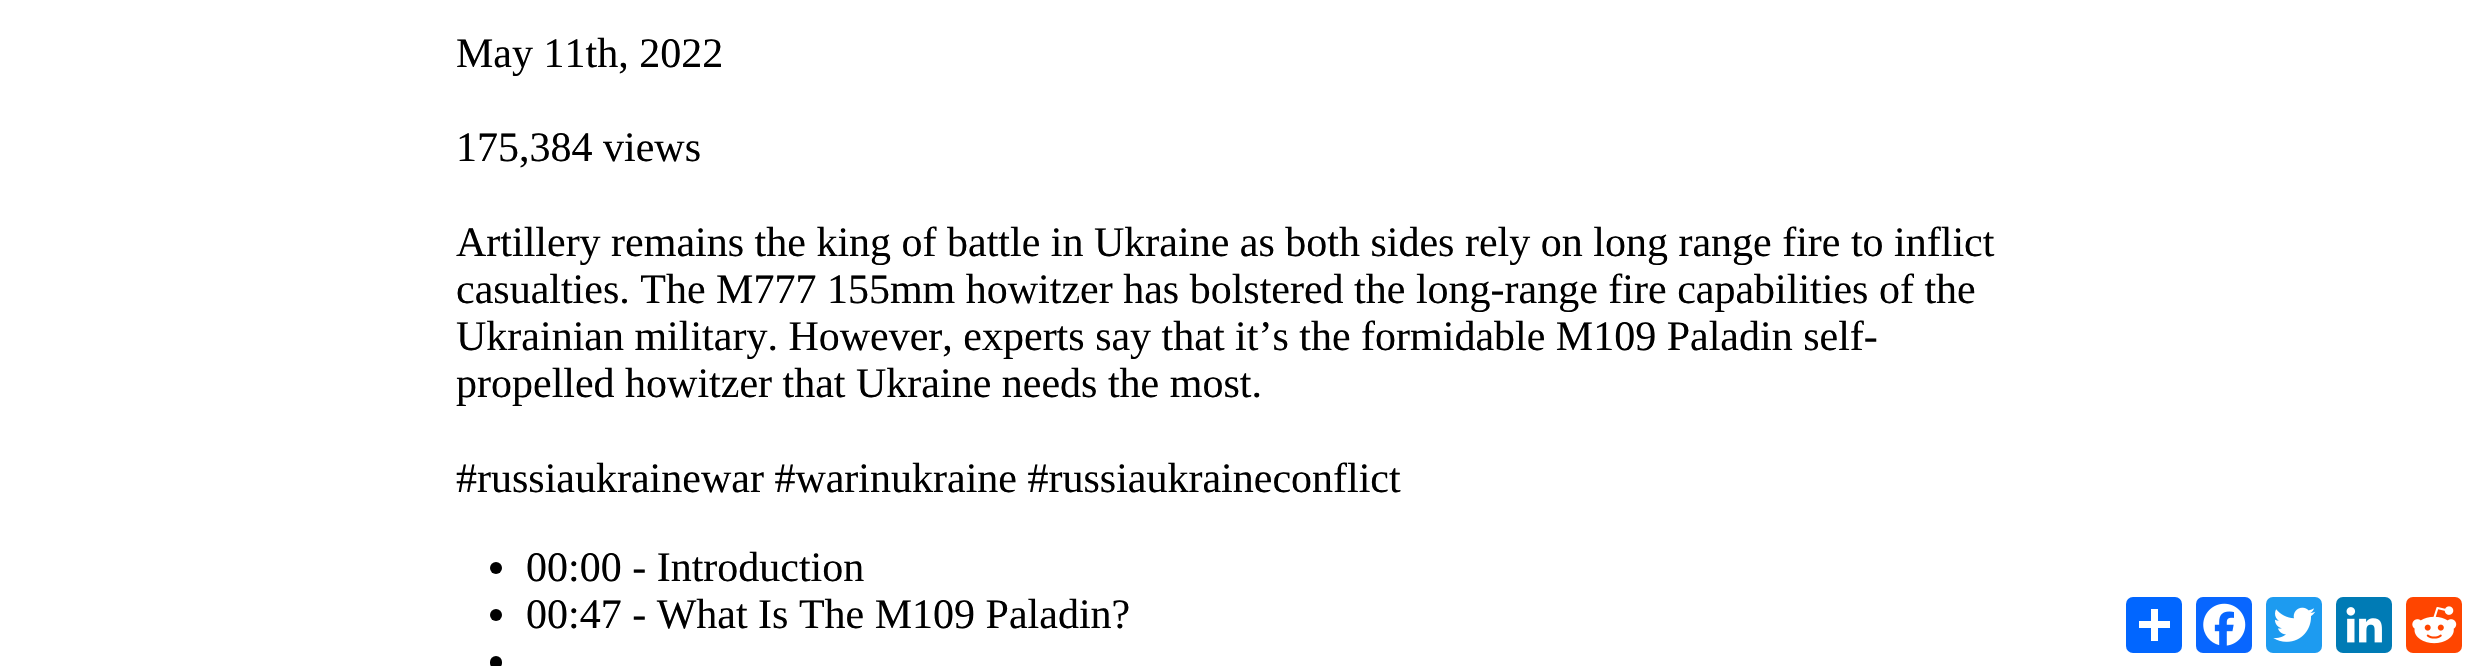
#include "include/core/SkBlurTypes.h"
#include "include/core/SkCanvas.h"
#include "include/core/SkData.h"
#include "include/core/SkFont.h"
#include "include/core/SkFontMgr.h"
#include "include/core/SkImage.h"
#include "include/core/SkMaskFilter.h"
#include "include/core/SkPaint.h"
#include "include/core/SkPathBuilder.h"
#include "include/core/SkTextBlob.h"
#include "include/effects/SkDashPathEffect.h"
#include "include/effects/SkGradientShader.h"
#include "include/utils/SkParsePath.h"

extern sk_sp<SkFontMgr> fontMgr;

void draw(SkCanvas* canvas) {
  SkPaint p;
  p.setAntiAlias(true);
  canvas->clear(SK_ColorWHITE);
  p.setColor(SK_ColorBLACK);
  canvas->drawCircle(496, 568, 6, p);
  canvas->drawCircle(496, 615, 6, p);
  canvas->drawRoundRect(SkRect::MakeLTRB(490, 656, 502, 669), 6, 6, p);
  p.setColor(SkColorSetRGB(1, 102, 255));
  canvas->drawRoundRect(SkRect::MakeLTRB(2126, 597, 2182, 653), 7, 7, p);
  p.setColor(SK_ColorWHITE);
  canvas->drawRect(SkRect::MakeLTRB(2151, 609, 2158, 641), p);
  canvas->drawRect(SkRect::MakeLTRB(2139, 621, 2170, 628), p);
  p.setColor(SkColorSetRGB(8, 102, 255));
  canvas->drawRoundRect(SkRect::MakeLTRB(2196, 597, 2252, 653), 7, 7, p);
  canvas->drawImageRect(SkImages::DeferredFromEncodedData(SkData::MakeFromFileName("images/1.png")), SkRect::MakeLTRB(2203, 603, 2246, 646), SkSamplingOptions());
  p.setColor(SkColorSetRGB(29, 155, 240));
  canvas->drawRoundRect(SkRect::MakeLTRB(2266, 597, 2322, 653), 7, 7, p);
  canvas->drawImageRect(SkImages::DeferredFromEncodedData(SkData::MakeFromFileName("images/2.png")), SkRect::MakeLTRB(2273, 607, 2316, 642), SkSamplingOptions());
  p.setColor(SkColorSetRGB(0, 123, 181));
  canvas->drawRoundRect(SkRect::MakeLTRB(2336, 597, 2392, 653), 7, 7, p);
  canvas->drawImageRect(SkImages::DeferredFromEncodedData(SkData::MakeFromFileName("images/3.png")), SkRect::MakeLTRB(2346, 607, 2382, 643), SkSamplingOptions());
  p.setColor(SkColorSetRGB(255, 69, 0));
  canvas->drawRoundRect(SkRect::MakeLTRB(2406, 597, 2462, 653), 7, 7, p);
  canvas->drawImageRect(SkImages::DeferredFromEncodedData(SkData::MakeFromFileName("images/4.png")), SkRect::MakeLTRB(2412, 606, 2457, 644), SkSamplingOptions());
  SkFont font1(fontMgr->matchFamilyStyle("Liberation Serif", SkFontStyle::Normal()), 42);
  font1.setSubpixel(true);
  p.setColor(SK_ColorBLACK);
  canvas->drawString("May 11th, 2022", 456, 67, font1, p);
  canvas->drawString("175,384 views", 456, 161, font1, p);
  canvas->drawString("Artillery remains the king of battle in Ukraine as both sides rely on long range fire to inflict", 456, 256, font1, p);
  canvas->drawString("casualties. The M777 155mm howitzer has bolstered the long-range fire capabilities of the", 456, 303, font1, p);
  canvas->drawString("Ukrainian military. However, experts say that it’s the formidable M109 Paladin self-", 456, 350, font1, p);
  canvas->drawString("propelled howitzer that Ukraine needs the most.", 456, 397, font1, p);
  canvas->drawString("#russiaukrainewar #warinukraine #russiaukraineconflict", 456, 492, font1, p);
  canvas->drawString("00:00 - Introduction", 526, 581, font1, p);
  canvas->drawString("00:47 - What Is The M109 Paladin?", 526, 628, font1, p);
}
